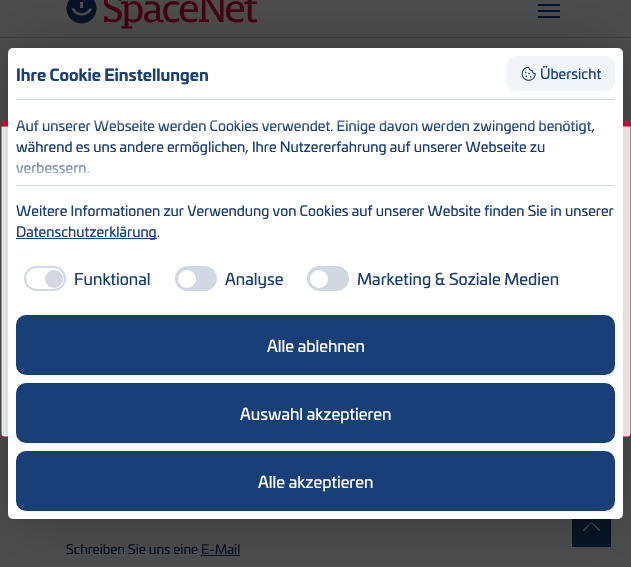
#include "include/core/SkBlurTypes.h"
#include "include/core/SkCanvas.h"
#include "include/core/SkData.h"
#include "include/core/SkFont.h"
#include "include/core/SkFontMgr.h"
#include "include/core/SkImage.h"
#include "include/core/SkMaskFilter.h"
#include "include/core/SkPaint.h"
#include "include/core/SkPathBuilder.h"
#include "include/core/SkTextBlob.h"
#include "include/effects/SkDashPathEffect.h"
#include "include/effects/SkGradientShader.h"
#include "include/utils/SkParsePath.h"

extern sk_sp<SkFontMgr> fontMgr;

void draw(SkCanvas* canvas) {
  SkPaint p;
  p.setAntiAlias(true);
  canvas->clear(SkColorSetRGB(77, 77, 77));
  canvas->drawImageRect(SkImages::DeferredFromEncodedData(SkData::MakeFromFileName("images/2.png")), SkRect::MakeLTRB(1, 120, 631, 438), SkSamplingOptions());
  p.setColor(SkColorSetRGB(65, 65, 65));
  canvas->drawRect(SkRect::MakeLTRB(0, 37, 631, 38), p);
  canvas->drawImageRect(SkImages::DeferredFromEncodedData(SkData::MakeFromFileName("images/3.png")), SkRect::MakeLTRB(66, 0, 257, 29), SkSamplingOptions());
  p.setColor(SkColorSetRGB(7, 19, 36));
  canvas->drawRect(SkRect::MakeLTRB(538, 10, 560, 12), p);
  canvas->drawRect(SkRect::MakeLTRB(538, 4, 560, 6), p);
  canvas->drawRect(SkRect::MakeLTRB(538, 16, 560, 18), p);
  canvas->drawRect(SkRect::MakeLTRB(572, 519, 611, 547), p);
  p.setColor(SkColorSetRGB(77, 77, 77));
  canvas->drawPath(SkPathBuilder().moveTo(591.5f, 522).lineTo(600, 530).lineTo(599, 531).lineTo(591, 522.5f).close().detach(), p);
  canvas->drawPath(SkPathBuilder().moveTo(591.5f, 522).lineTo(592, 522.5f).lineTo(584, 531).lineTo(583, 530).close().detach(), p);
  p.setColor(SkColorSetRGB(7, 19, 36));
  canvas->drawRect(SkRect::MakeLTRB(201, 555, 240, 556), p);
  p.setColor(SkColorSetARGB(64, 0, 0, 0));
  p.setMaskFilter(SkMaskFilter::MakeBlur(kNormal_SkBlurStyle, 32));
  canvas->drawRoundRect(SkRect::MakeLTRB(8, 48, 623, 519), 5, 5, p);
  p.setMaskFilter(nullptr);
  p.setColor(SK_ColorWHITE);
  canvas->drawRoundRect(SkRect::MakeLTRB(8, 48, 623, 519), 5, 5, p);
  p.setColor(SkColorSetRGB(241, 245, 250));
  canvas->drawRoundRect(SkRect::MakeLTRB(506, 56, 615, 91), 10, 10, p);
  canvas->drawImageRect(SkImages::DeferredFromEncodedData(SkData::MakeFromFileName("images/1.png")), SkRect::MakeLTRB(521, 66, 536, 81), SkSamplingOptions());
  p.setColor(SkColorSetRGB(209, 216, 227));
  canvas->drawRect(SkRect::MakeLTRB(16, 99, 615, 100), p);
  canvas->drawRect(SkRect::MakeLTRB(16, 185, 615, 186), p);
  p.setColor(SkColorSetRGB(24, 63, 119));
  canvas->drawRect(SkRect::MakeLTRB(16, 238, 157, 239), p);
  p.setStyle(SkPaint::kStroke_Style);
  p.setStrokeWidth(2);
  p.setColor(SkColorSetRGB(209, 216, 227));
  canvas->drawRoundRect(SkRect::MakeLTRB(25, 267, 65, 290), 11.5f, 11.5f, p);
  p.setStyle(SkPaint::kFill_Style);
  canvas->drawCircle(54, 279, 9, p);
  canvas->drawRoundRect(SkRect::MakeLTRB(176, 267, 216, 290), 11.5f, 11.5f, p);
  p.setStyle(SkPaint::kStroke_Style);
  canvas->drawRoundRect(SkRect::MakeLTRB(176, 267, 216, 290), 11.5f, 11.5f, p);
  p.setStyle(SkPaint::kFill_Style);
  p.setColor(SK_ColorWHITE);
  canvas->drawCircle(187, 279, 9, p);
  p.setColor(SkColorSetRGB(209, 216, 227));
  canvas->drawRoundRect(SkRect::MakeLTRB(308, 267, 348, 290), 11.5f, 11.5f, p);
  p.setStyle(SkPaint::kStroke_Style);
  canvas->drawRoundRect(SkRect::MakeLTRB(308, 267, 348, 290), 11.5f, 11.5f, p);
  p.setStyle(SkPaint::kFill_Style);
  p.setColor(SK_ColorWHITE);
  canvas->drawCircle(319, 279, 9, p);
  p.setColor(SkColorSetRGB(24, 63, 119));
  canvas->drawRoundRect(SkRect::MakeLTRB(17, 316, 614, 374), 9, 9, p);
  p.setStyle(SkPaint::kStroke_Style);
  canvas->drawRoundRect(SkRect::MakeLTRB(17, 316, 614, 374), 9, 9, p);
  p.setStyle(SkPaint::kFill_Style);
  canvas->drawRoundRect(SkRect::MakeLTRB(17, 384, 614, 442), 9, 9, p);
  p.setStyle(SkPaint::kStroke_Style);
  canvas->drawRoundRect(SkRect::MakeLTRB(17, 384, 614, 442), 9, 9, p);
  p.setStyle(SkPaint::kFill_Style);
  canvas->drawRoundRect(SkRect::MakeLTRB(17, 452, 614, 510), 9, 9, p);
  p.setStyle(SkPaint::kStroke_Style);
  canvas->drawRoundRect(SkRect::MakeLTRB(17, 452, 614, 510), 9, 9, p);
  SkFont font1(fontMgr->matchFamilyStyle("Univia", SkFontStyle::Bold()), 16);
  font1.setSubpixel(true);
  p.setStyle(SkPaint::kFill_Style);
  canvas->drawString("Ihre Cookie Einstellungen", 16, 81, font1, p);
  SkFont font2(fontMgr->matchFamilyStyle("Univia", SkFontStyle::Normal()), 14);
  font2.setSubpixel(true);
  canvas->drawString("Übersicht", 540, 79, font2, p);
  canvas->drawString("Auf unserer Webseite werden Cookies verwendet. Einige davon werden zwingend benötigt,", 16, 131, font2, p);
  canvas->drawString("während es uns andere ermöglichen, Ihre Nutzererfahrung auf unserer Webseite zu", 16, 152, font2, p);
  canvas->drawString("verbessern.", 16, 173, font2, p);
  {
    const SkColor colors[] = {SkColorSetARGB(0, 255, 255, 255), SK_ColorWHITE};
    const float stops[] = {0, 1};
    const SkPoint ends[] = {{316, 129}, {316, 99}};
    p.setShader(SkGradientShader::MakeLinear(ends, colors, stops, 2, SkTileMode::kClamp));
    p.setAlpha(255);
  }
  canvas->drawRect(SkRect::MakeLTRB(17, 120, 591, 128), p);
  {
    const SkColor colors[] = {SkColorSetARGB(0, 255, 255, 255), SK_ColorWHITE};
    const float stops[] = {0, 1};
    const SkPoint ends[] = {{316, 155}, {316, 185}};
    p.setShader(SkGradientShader::MakeLinear(ends, colors, stops, 2, SkTileMode::kClamp));
    p.setAlpha(255);
  }
  canvas->drawRect(SkRect::MakeLTRB(16, 162, 89, 174), p);
  p.setShader(nullptr);
  p.setColor(SkColorSetRGB(24, 63, 119));
  canvas->drawString("Weitere Informationen zur Verwendung von Cookies auf unserer Website finden Sie in unserer", 16, 216, font2, p);
  canvas->drawString("Datenschutzerklärung.", 16, 237, font2, p);
  SkFont font3(fontMgr->matchFamilyStyle("Univia", SkFontStyle::Normal()), 16);
  font3.setSubpixel(true);
  canvas->drawString("Funktional", 74, 285, font3, p);
  canvas->drawString("Analyse", 225, 285, font3, p);
  canvas->drawString("Marketing & Soziale Medien", 357, 285, font3, p);
  p.setColor(SK_ColorWHITE);
  canvas->drawString("Alle ablehnen", 267, 352, font3, p);
  canvas->drawString("Auswahl akzeptieren", 240, 420, font3, p);
  canvas->drawString("Alle akzeptieren", 258, 488, font3, p);
  SkFont font4(fontMgr->matchFamilyStyle("Univia", SkFontStyle::Normal()), 13);
  font4.setSubpixel(true);
  p.setColor(SkColorSetRGB(7, 19, 36));
  canvas->drawString("Schreiben Sie uns eine E-Mail", 66, 554, font4, p);
}
